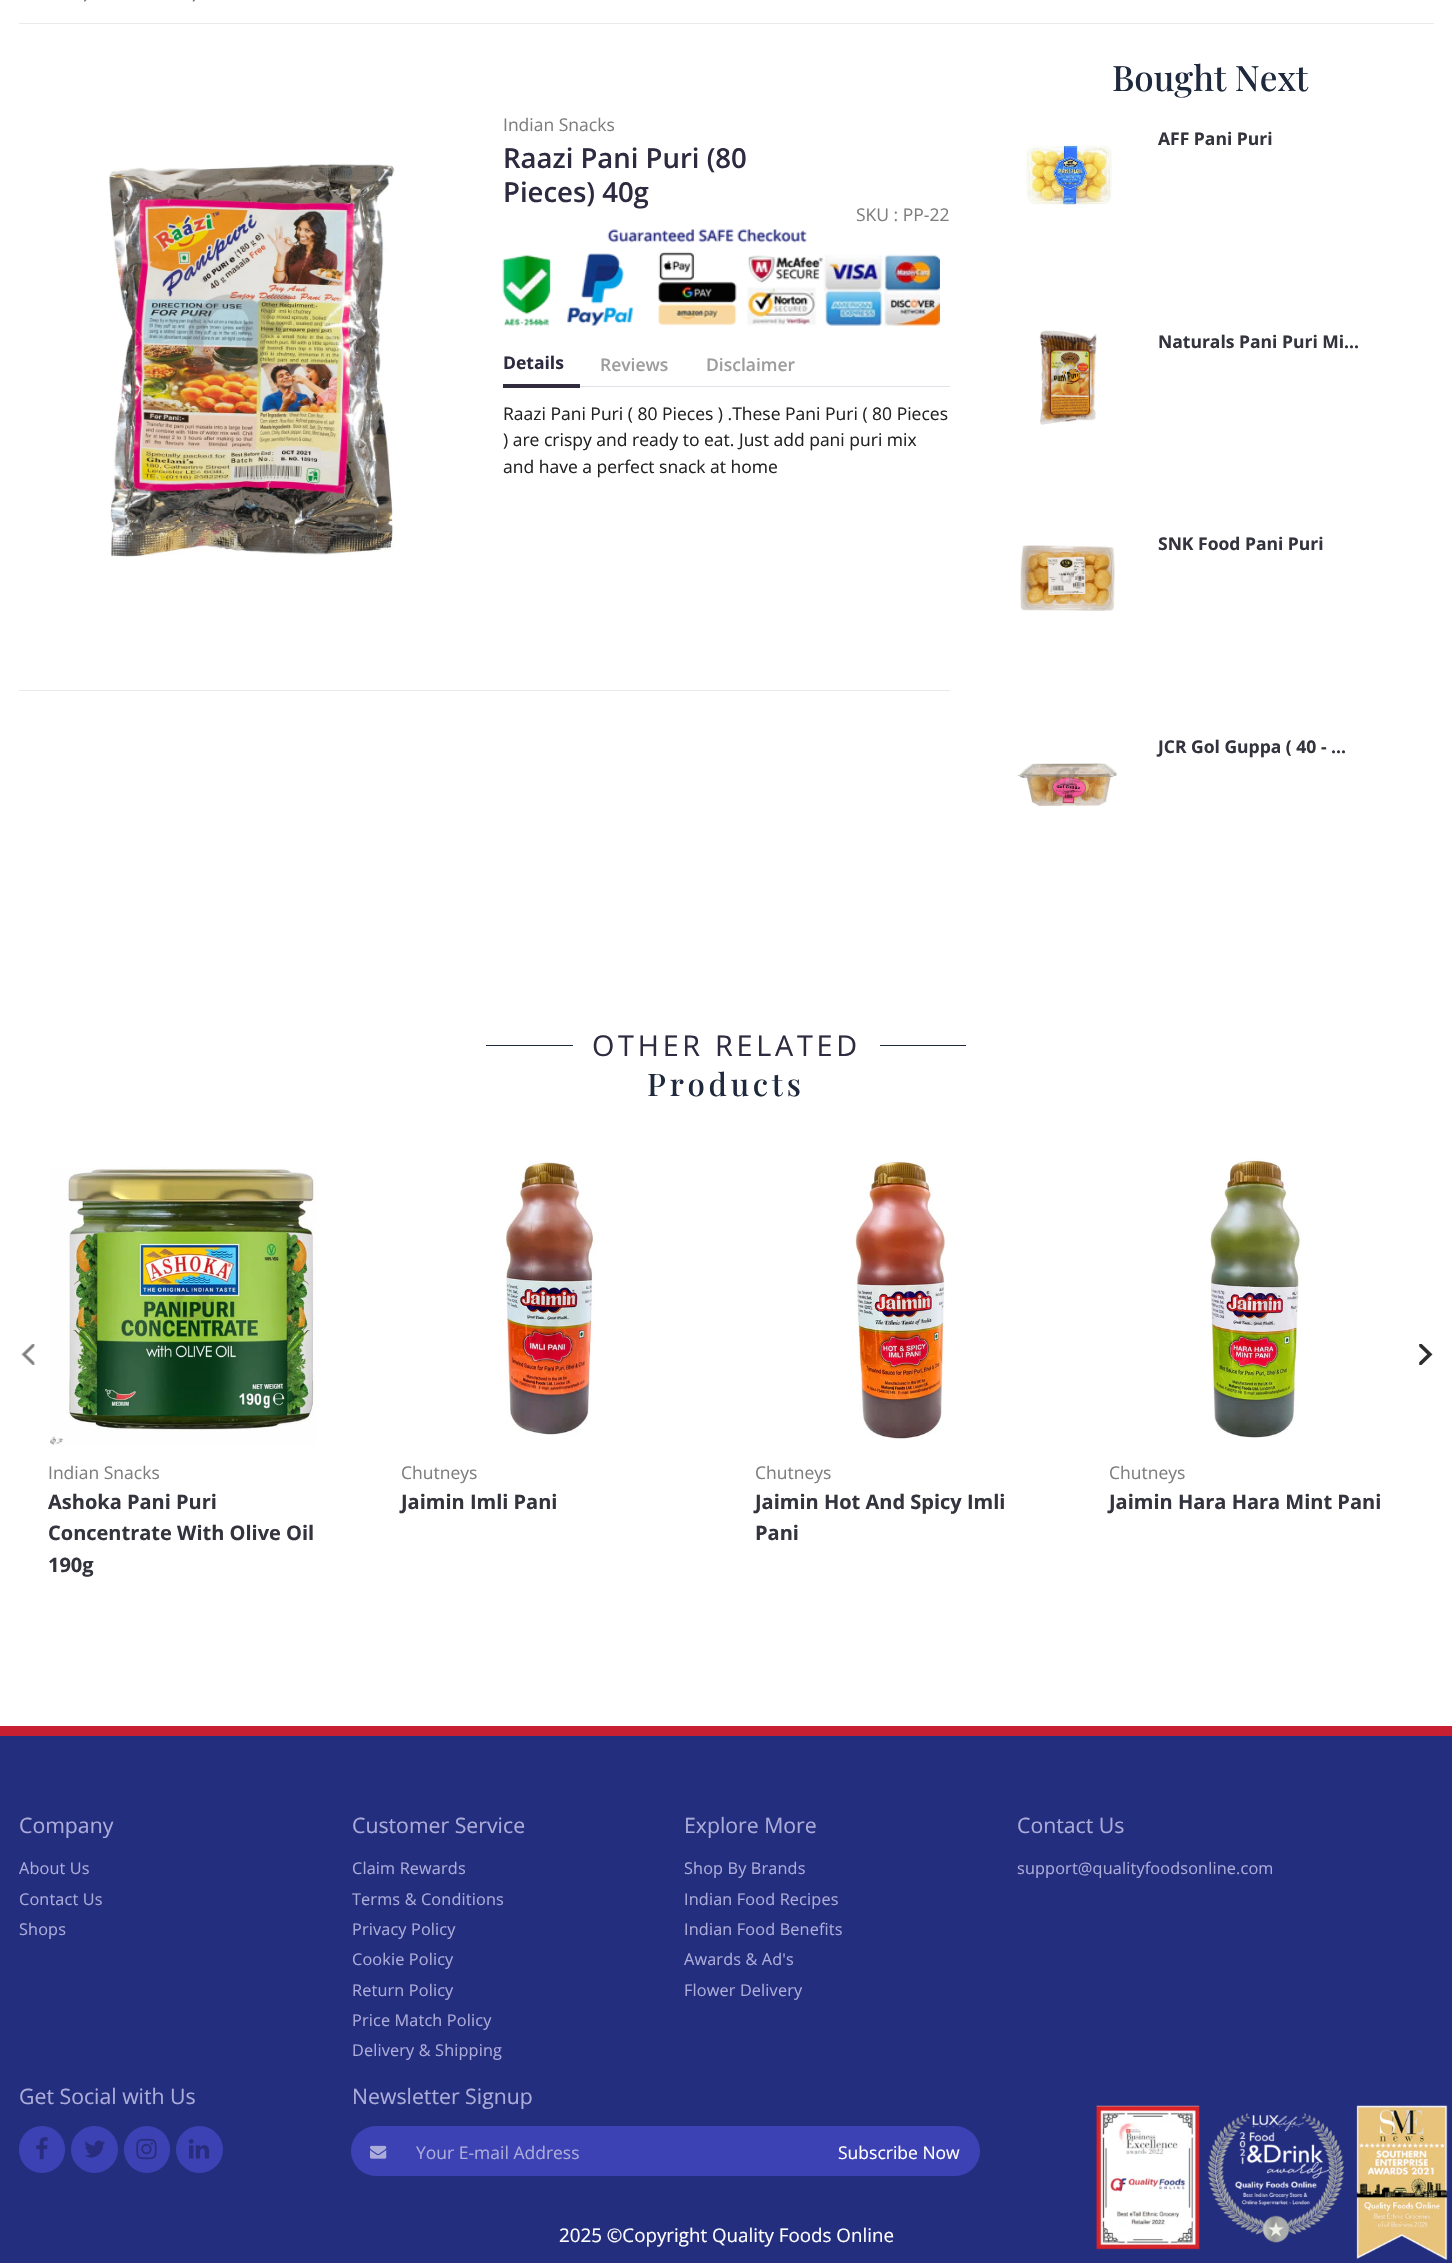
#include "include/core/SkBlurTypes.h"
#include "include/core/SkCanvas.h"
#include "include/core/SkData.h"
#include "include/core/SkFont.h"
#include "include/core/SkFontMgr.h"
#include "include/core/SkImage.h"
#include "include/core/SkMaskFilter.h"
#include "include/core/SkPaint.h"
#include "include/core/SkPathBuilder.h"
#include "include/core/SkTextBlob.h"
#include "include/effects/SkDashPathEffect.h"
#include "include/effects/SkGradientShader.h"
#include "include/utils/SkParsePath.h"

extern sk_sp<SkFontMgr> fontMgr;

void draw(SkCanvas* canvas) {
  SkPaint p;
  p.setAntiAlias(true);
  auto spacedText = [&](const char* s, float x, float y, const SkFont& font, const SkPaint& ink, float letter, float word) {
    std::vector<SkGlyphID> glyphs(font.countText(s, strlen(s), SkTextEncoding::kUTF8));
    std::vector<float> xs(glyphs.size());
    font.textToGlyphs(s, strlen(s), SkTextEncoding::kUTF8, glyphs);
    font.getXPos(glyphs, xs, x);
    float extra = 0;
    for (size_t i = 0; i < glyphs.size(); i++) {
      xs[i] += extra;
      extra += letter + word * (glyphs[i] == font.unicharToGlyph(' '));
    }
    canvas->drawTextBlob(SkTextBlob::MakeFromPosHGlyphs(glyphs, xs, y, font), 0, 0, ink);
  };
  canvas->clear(SK_ColorWHITE);
  p.setColor(SkColorSetRGB(232, 234, 235));
  canvas->drawRect(SkRect::MakeLTRB(19, 23, 1434, 24), p);
  canvas->drawImageRect(SkImages::DeferredFromEncodedData(SkData::MakeFromFileName("images/1.png")), SkRect::MakeLTRB(84, 0, 87, 2), SkSamplingOptions());
  canvas->drawImageRect(SkImages::DeferredFromEncodedData(SkData::MakeFromFileName("images/2.png")), SkRect::MakeLTRB(192, 0, 196, 2), SkSamplingOptions());
  canvas->drawRect(SkRect::MakeLTRB(19, 690, 950, 691), p);
  canvas->drawImageRect(SkImages::DeferredFromEncodedData(SkData::MakeFromFileName("images/3.png")), SkRect::MakeLTRB(109, 163, 395, 557), SkSamplingOptions());
  canvas->drawImageRect(SkImages::DeferredFromEncodedData(SkData::MakeFromFileName("images/4.png")), SkRect::MakeLTRB(502, 229, 940, 326), SkSamplingOptions());
  p.setColor(SkColorSetRGB(222, 226, 230));
  canvas->drawRect(SkRect::MakeLTRB(580, 386, 950, 387), p);
  p.setColor(SkColorSetRGB(48, 44, 61));
  canvas->drawRect(SkRect::MakeLTRB(503, 384, 580, 388), p);
  canvas->drawImageRect(SkImages::DeferredFromEncodedData(SkData::MakeFromFileName("images/5.png")), SkRect::MakeLTRB(1026, 145, 1112, 205), SkSamplingOptions());
  canvas->drawImageRect(SkImages::DeferredFromEncodedData(SkData::MakeFromFileName("images/6.png")), SkRect::MakeLTRB(1039, 330, 1097, 425), SkSamplingOptions());
  canvas->drawImageRect(SkImages::DeferredFromEncodedData(SkData::MakeFromFileName("images/7.png")), SkRect::MakeLTRB(1020, 545, 1115, 611), SkSamplingOptions());
  canvas->drawImageRect(SkImages::DeferredFromEncodedData(SkData::MakeFromFileName("images/8.png")), SkRect::MakeLTRB(1017, 763, 1118, 807), SkSamplingOptions());
  p.setColor(SkColorSetRGB(31, 42, 60));
  canvas->drawRect(SkRect::MakeLTRB(486, 1045, 573, 1046), p);
  canvas->drawRect(SkRect::MakeLTRB(880, 1045, 966, 1046), p);
  canvas->drawImageRect(SkImages::DeferredFromEncodedData(SkData::MakeFromFileName("images/9.png")), SkRect::MakeLTRB(21, 1344, 35, 1365), SkSamplingOptions());
  canvas->drawImageRect(SkImages::DeferredFromEncodedData(SkData::MakeFromFileName("images/10.png")), SkRect::MakeLTRB(1419, 1344, 1433, 1365), SkSamplingOptions());
  canvas->drawImageRect(SkImages::DeferredFromEncodedData(SkData::MakeFromFileName("images/11.png")), SkRect::MakeLTRB(50, 1167, 316, 1446), SkSamplingOptions());
  canvas->drawImageRect(SkImages::DeferredFromEncodedData(SkData::MakeFromFileName("images/12.png")), SkRect::MakeLTRB(506, 1161, 596, 1435), SkSamplingOptions());
  canvas->drawImageRect(SkImages::DeferredFromEncodedData(SkData::MakeFromFileName("images/13.png")), SkRect::MakeLTRB(855, 1161, 945, 1440), SkSamplingOptions());
  canvas->drawImageRect(SkImages::DeferredFromEncodedData(SkData::MakeFromFileName("images/14.png")), SkRect::MakeLTRB(1209, 1159, 1304, 1438), SkSamplingOptions());
  p.setColor(SkColorSetRGB(36, 46, 127));
  canvas->drawRect(SkRect::MakeLTRB(0, 1736, 1452, 2263), p);
  canvas->drawImageRect(SkImages::DeferredFromEncodedData(SkData::MakeFromFileName("images/15.png")), SkRect::MakeLTRB(1096, 2105, 1448, 2260), SkSamplingOptions());
  p.setColor(SkColorSetRGB(200, 31, 51));
  canvas->drawRect(SkRect::MakeLTRB(0, 1726, 1452, 1736), p);
  p.setColor(SkColorSetRGB(60, 66, 179));
  canvas->drawRoundRect(SkRect::MakeLTRB(19, 2126, 65, 2173), 23, 23, p);
  canvas->drawImageRect(SkImages::DeferredFromEncodedData(SkData::MakeFromFileName("images/16.png")), SkRect::MakeLTRB(36, 2137, 48, 2160), SkSamplingOptions());
  canvas->drawCircle(94.5f, 2149.5f, 23.5f, p);
  canvas->drawImageRect(SkImages::DeferredFromEncodedData(SkData::MakeFromFileName("images/17.png")), SkRect::MakeLTRB(84, 2140, 105, 2158), SkSamplingOptions());
  canvas->drawRoundRect(SkRect::MakeLTRB(124, 2126, 170, 2173), 23, 23, p);
  canvas->drawImageRect(SkImages::DeferredFromEncodedData(SkData::MakeFromFileName("images/18.png")), SkRect::MakeLTRB(136, 2138, 157, 2160), SkSamplingOptions());
  canvas->drawCircle(199.5f, 2149.5f, 23.5f, p);
  canvas->drawImageRect(SkImages::DeferredFromEncodedData(SkData::MakeFromFileName("images/19.png")), SkRect::MakeLTRB(188, 2139, 210, 2159), SkSamplingOptions());
  canvas->drawRoundRect(SkRect::MakeLTRB(351, 2126, 980, 2176), 25, 25, p);
  canvas->drawImageRect(SkImages::DeferredFromEncodedData(SkData::MakeFromFileName("images/20.png")), SkRect::MakeLTRB(370, 2145, 387, 2159), SkSamplingOptions());
  SkFont font1(fontMgr->matchFamilyStyle("Open Sans", SkFontStyle::Normal()), 17.5f);
  font1.setSubpixel(true);
  p.setColor(SkColorSetRGB(126, 126, 126));
  canvas->drawString("Indian Snacks", 503, 131, font1, p);
  SkFont font2(fontMgr->matchFamilyStyle("Open Sans", SkFontStyle(600, SkFontStyle::kNormal_Width, SkFontStyle::kUpright_Slant)), 27.5f);
  font2.setSubpixel(true);
  p.setColor(SkColorSetRGB(46, 43, 64));
  canvas->drawString("Raazi Pani Puri (80", 503, 168, font2, p);
  canvas->drawString("Pieces) 40g", 503, 202, font2, p);
  p.setColor(SkColorSetRGB(126, 126, 126));
  canvas->drawString("SKU : PP-22", 856, 221, font1, p);
  SkFont font3(fontMgr->matchFamilyStyle("Open Sans", SkFontStyle::Bold()), 17.5f);
  font3.setSubpixel(true);
  p.setColor(SkColorSetRGB(46, 43, 64));
  canvas->drawString("Details", 503, 369, font3, p);
  SkFont font4(fontMgr->matchFamilyStyle("Open Sans", SkFontStyle(600, SkFontStyle::kNormal_Width, SkFontStyle::kUpright_Slant)), 17.5f);
  font4.setSubpixel(true);
  p.setColor(SkColorSetRGB(158, 156, 156));
  canvas->drawString("Reviews", 600, 371, font4, p);
  canvas->drawString("Disclaimer", 706, 371, font4, p);
  p.setColor(SkColorSetRGB(35, 35, 35));
  canvas->drawString("Raazi Pani Puri ( 80 Pieces ) .These Pani Puri ( 80 Pieces", 503, 420, font1, p);
  canvas->drawString(") are crispy and ready to eat. Just add pani puri mix", 503, 446, font1, p);
  canvas->drawString("and have a perfect snack at home", 503, 473, font1, p);
  SkFont font5(fontMgr->matchFamilyStyle("Playfair Display", SkFontStyle(500, SkFontStyle::kNormal_Width, SkFontStyle::kUpright_Slant)), 35);
  font5.setSubpixel(true);
  p.setColor(SkColorSetRGB(30, 41, 61));
  canvas->drawString("Bought Next", 1112, 91, font5, p);
  p.setColor(SkColorSetRGB(52, 52, 62));
  canvas->drawString("AFF Pani Puri", 1158, 145, font3, p);
  canvas->drawString("Naturals Pani Puri Mi...", 1158, 348, font3, p);
  canvas->drawString("SNK Food Pani Puri", 1158, 550, font3, p);
  canvas->drawString("JCR Gol Guppa ( 40 - ...", 1158, 753, font3, p);
  SkFont font6(fontMgr->matchFamilyStyle("Open Sans", SkFontStyle::Normal()), 28.75f);
  font6.setSubpixel(true);
  p.setColor(SkColorSetRGB(46, 43, 64));
  spacedText("OTHER RELATED", 592, 1056, font6, p, 3.75f, 0);
  SkFont font7(fontMgr->matchFamilyStyle("Playfair Display", SkFontStyle(500, SkFontStyle::kNormal_Width, SkFontStyle::kUpright_Slant)), 31.25f);
  font7.setSubpixel(true);
  p.setColor(SkColorSetRGB(30, 41, 61));
  spacedText("Products", 647, 1096, font7, p, 3.75f, 0);
  p.setColor(SkColorSetRGB(126, 126, 126));
  canvas->drawString("Indian Snacks", 48, 1479, font1, p);
  SkFont font8(fontMgr->matchFamilyStyle("Open Sans", SkFontStyle::Bold()), 20);
  font8.setSubpixel(true);
  p.setColor(SkColorSetRGB(52, 52, 62));
  canvas->drawString("Ashoka Pani Puri", 48, 1509, font8, p);
  canvas->drawString("Concentrate With Olive Oil", 48, 1540, font8, p);
  canvas->drawString("190g", 48, 1572, font8, p);
  p.setColor(SkColorSetRGB(126, 126, 126));
  canvas->drawString("Chutneys", 401, 1479, font1, p);
  p.setColor(SkColorSetRGB(52, 52, 62));
  canvas->drawString("Jaimin Imli Pani", 401, 1509, font8, p);
  p.setColor(SkColorSetRGB(126, 126, 126));
  canvas->drawString("Chutneys", 755, 1479, font1, p);
  p.setColor(SkColorSetRGB(52, 52, 62));
  canvas->drawString("Jaimin Hot And Spicy Imli", 755, 1509, font8, p);
  canvas->drawString("Pani", 755, 1540, font8, p);
  p.setColor(SkColorSetRGB(126, 126, 126));
  canvas->drawString("Chutneys", 1109, 1479, font1, p);
  p.setColor(SkColorSetRGB(52, 52, 62));
  canvas->drawString("Jaimin Hara Hara Mint Pani", 1109, 1509, font8, p);
  SkFont font9(fontMgr->matchFamilyStyle("Open Sans", SkFontStyle::Normal()), 21.25f);
  font9.setSubpixel(true);
  p.setColor(SkColorSetRGB(172, 172, 218));
  canvas->drawString("Company", 19, 1833, font9, p);
  SkFont font10(fontMgr->matchFamilyStyle("Open Sans", SkFontStyle::Normal()), 16.25f);
  font10.setSubpixel(true);
  spacedText("About Us", 19, 1874, font10, p, 0.15f, 0);
  spacedText("Contact Us", 19, 1905, font10, p, 0.15f, 0);
  spacedText("Shops", 19, 1935, font10, p, 0.15f, 0);
  canvas->drawString("Customer Service", 352, 1833, font9, p);
  spacedText("Claim Rewards", 352, 1874, font10, p, 0.15f, 0);
  spacedText("Terms & Conditions", 352, 1905, font10, p, 0.15f, 0);
  spacedText("Privacy Policy", 352, 1935, font10, p, 0.15f, 0);
  spacedText("Cookie Policy", 352, 1965, font10, p, 0.15f, 0);
  spacedText("Return Policy", 352, 1996, font10, p, 0.15f, 0);
  spacedText("Price Match Policy", 352, 2026, font10, p, 0.15f, 0);
  spacedText("Delivery & Shipping", 352, 2056, font10, p, 0.15f, 0);
  canvas->drawString("Explore More", 684, 1833, font9, p);
  spacedText("Shop By Brands", 684, 1874, font10, p, 0.15f, 0);
  spacedText("Indian Food Recipes", 684, 1905, font10, p, 0.15f, 0);
  spacedText("Indian Food Benefits", 684, 1935, font10, p, 0.15f, 0);
  spacedText("Awards & Ad's", 684, 1965, font10, p, 0.15f, 0);
  spacedText("Flower Delivery", 684, 1996, font10, p, 0.15f, 0);
  canvas->drawString("Contact Us", 1017, 1833, font9, p);
  spacedText("support@qualityfoodsonline.com", 1017, 1874, font10, p, 0.15f, 0);
  canvas->drawString("Get Social with Us", 19, 2104, font9, p);
  canvas->drawString("Newsletter Signup", 352, 2104, font9, p);
  canvas->drawString("Your E-mail Address", 416, 2159, font1, p);
  p.setColor(SK_ColorWHITE);
  canvas->drawString("Subscribe Now", 838, 2159, font1, p);
  SkFont font11(fontMgr->matchFamilyStyle("Open Sans", SkFontStyle::Normal()), 18.75f);
  font11.setSubpixel(true);
  canvas->drawString("2025 ©Copyright Quality Foods Online", 559, 2242, font11, p);
}
